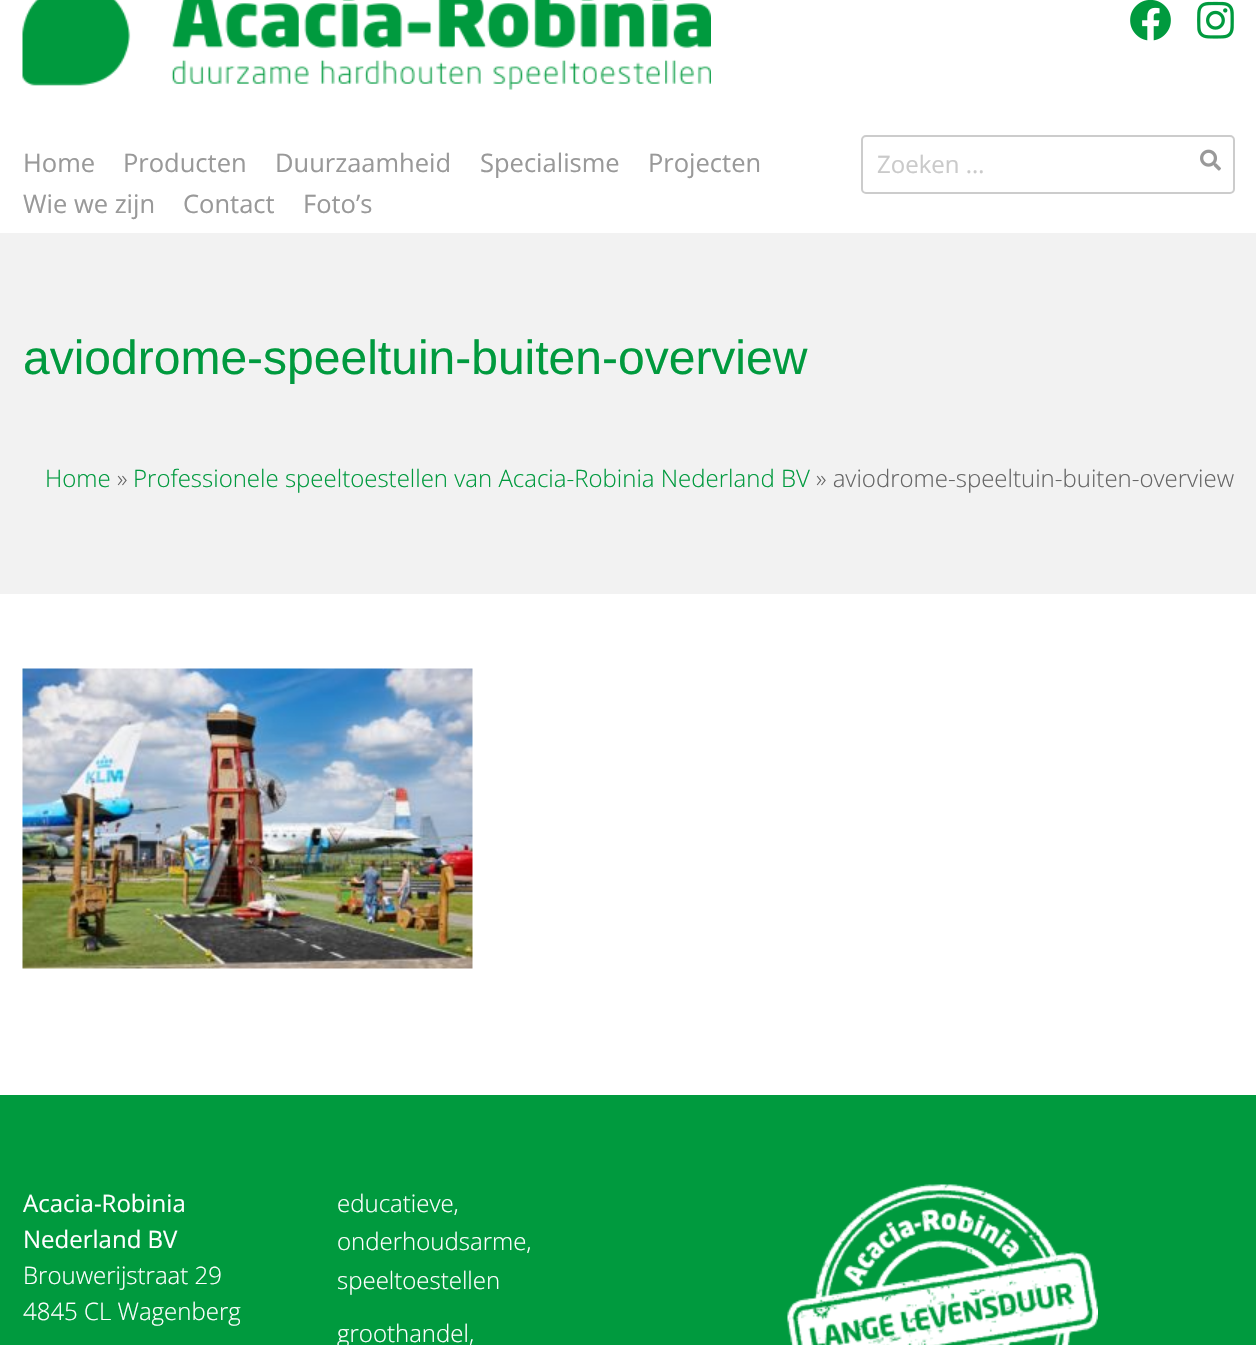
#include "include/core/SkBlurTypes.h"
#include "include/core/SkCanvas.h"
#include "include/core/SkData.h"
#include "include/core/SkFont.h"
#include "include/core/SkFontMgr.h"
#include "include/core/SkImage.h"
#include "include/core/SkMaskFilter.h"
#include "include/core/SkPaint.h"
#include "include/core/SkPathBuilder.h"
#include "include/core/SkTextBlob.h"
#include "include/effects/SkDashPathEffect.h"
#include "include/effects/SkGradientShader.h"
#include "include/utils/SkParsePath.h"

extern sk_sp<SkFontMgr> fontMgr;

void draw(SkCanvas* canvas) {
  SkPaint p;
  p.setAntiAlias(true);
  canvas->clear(SK_ColorWHITE);
  canvas->drawImageRect(SkImages::DeferredFromEncodedData(SkData::MakeFromFileName("images/1.png")), SkRect::MakeLTRB(22, 0, 711, 90), SkSamplingOptions());
  canvas->drawImageRect(SkImages::DeferredFromEncodedData(SkData::MakeFromFileName("images/2.png")), SkRect::MakeLTRB(1130, 0, 1171, 41), SkSamplingOptions());
  canvas->drawImageRect(SkImages::DeferredFromEncodedData(SkData::MakeFromFileName("images/3.png")), SkRect::MakeLTRB(1197, 1, 1234, 39), SkSamplingOptions());
  p.setStyle(SkPaint::kStroke_Style);
  p.setStrokeWidth(2);
  p.setColor(SkColorSetRGB(204, 204, 204));
  canvas->drawRoundRect(SkRect::MakeLTRB(862, 136, 1234, 193), 4, 4, p);
  canvas->drawImageRect(SkImages::DeferredFromEncodedData(SkData::MakeFromFileName("images/4.png")), SkRect::MakeLTRB(1200, 149, 1221, 171), SkSamplingOptions());
  p.setStyle(SkPaint::kFill_Style);
  p.setColor(SkColorSetRGB(242, 242, 242));
  canvas->drawRect(SkRect::MakeLTRB(0, 233, 1256, 594), p);
  canvas->drawImageRect(SkImages::DeferredFromEncodedData(SkData::MakeFromFileName("images/5.png")), SkRect::MakeLTRB(22, 668, 473, 969), SkSamplingOptions());
  p.setColor(SkColorSetRGB(0, 154, 62));
  canvas->drawRect(SkRect::MakeLTRB(0, 1095, 1256, 1345), p);
  canvas->drawImageRect(SkImages::DeferredFromEncodedData(SkData::MakeFromFileName("images/6.png")), SkRect::MakeLTRB(787, 1184, 1098, 1345), SkSamplingOptions());
  SkFont font1(fontMgr->matchFamilyStyle("Open Sans", SkFontStyle::Normal()), 25.5f);
  font1.setSubpixel(true);
  p.setColor(SkColorSetRGB(153, 153, 153));
  canvas->drawString("Home", 23, 172, font1, p);
  canvas->drawString("Producten", 123, 172, font1, p);
  canvas->drawString("Duurzaamheid", 275, 172, font1, p);
  canvas->drawString("Specialisme", 480, 172, font1, p);
  canvas->drawString("Projecten", 648, 172, font1, p);
  canvas->drawString("Wie we zijn", 23, 213, font1, p);
  canvas->drawString("Contact", 183, 213, font1, p);
  canvas->drawString("Foto’s", 303, 213, font1, p);
  SkFont font2(fontMgr->matchFamilyStyle("Open Sans", SkFontStyle::Normal()), 24);
  font2.setSubpixel(true);
  p.setColor(SkColorSetRGB(202, 202, 202));
  canvas->drawString("Zoeken …", 877, 173, font2, p);
  SkFont font3(fontMgr->matchFamilyStyle("Liberation Sans", SkFontStyle::Normal()), 48);
  font3.setSubpixel(true);
  p.setColor(SkColorSetRGB(0, 154, 62));
  canvas->drawString("aviodrome-speeltuin-buiten-overview", 23, 374, font3, p);
  SkFont font4(fontMgr->matchFamilyStyle("Open Sans", SkFontStyle(300, SkFontStyle::kNormal_Width, SkFontStyle::kUpright_Slant)), 24);
  font4.setSubpixel(true);
  canvas->drawString("Home", 45, 487, font4, p);
  p.setColor(SkColorSetRGB(102, 102, 102));
  canvas->drawString("»", 117, 487, font4, p);
  p.setColor(SkColorSetRGB(0, 154, 62));
  canvas->drawString("Professionele speeltoestellen van Acacia-Robinia Nederland BV", 133, 487, font4, p);
  p.setColor(SkColorSetRGB(102, 102, 102));
  canvas->drawString("» aviodrome-speeltuin-buiten-overview", 816, 487, font4, p);
  p.setColor(SK_ColorWHITE);
  canvas->drawString("Acacia-Robinia", 23, 1212, font2, p);
  canvas->drawString("Nederland BV", 23, 1248, font2, p);
  canvas->drawString("Brouwerijstraat 29", 23, 1284, font4, p);
  canvas->drawString("4845 CL Wagenberg", 23, 1320, font4, p);
  canvas->drawString("educatieve,", 337, 1212, font4, p);
  canvas->drawString("onderhoudsarme,", 337, 1250, font4, p);
  canvas->drawString("speeltoestellen", 337, 1289, font4, p);
  canvas->drawString("groothandel,", 337, 1342, font4, p);
}
